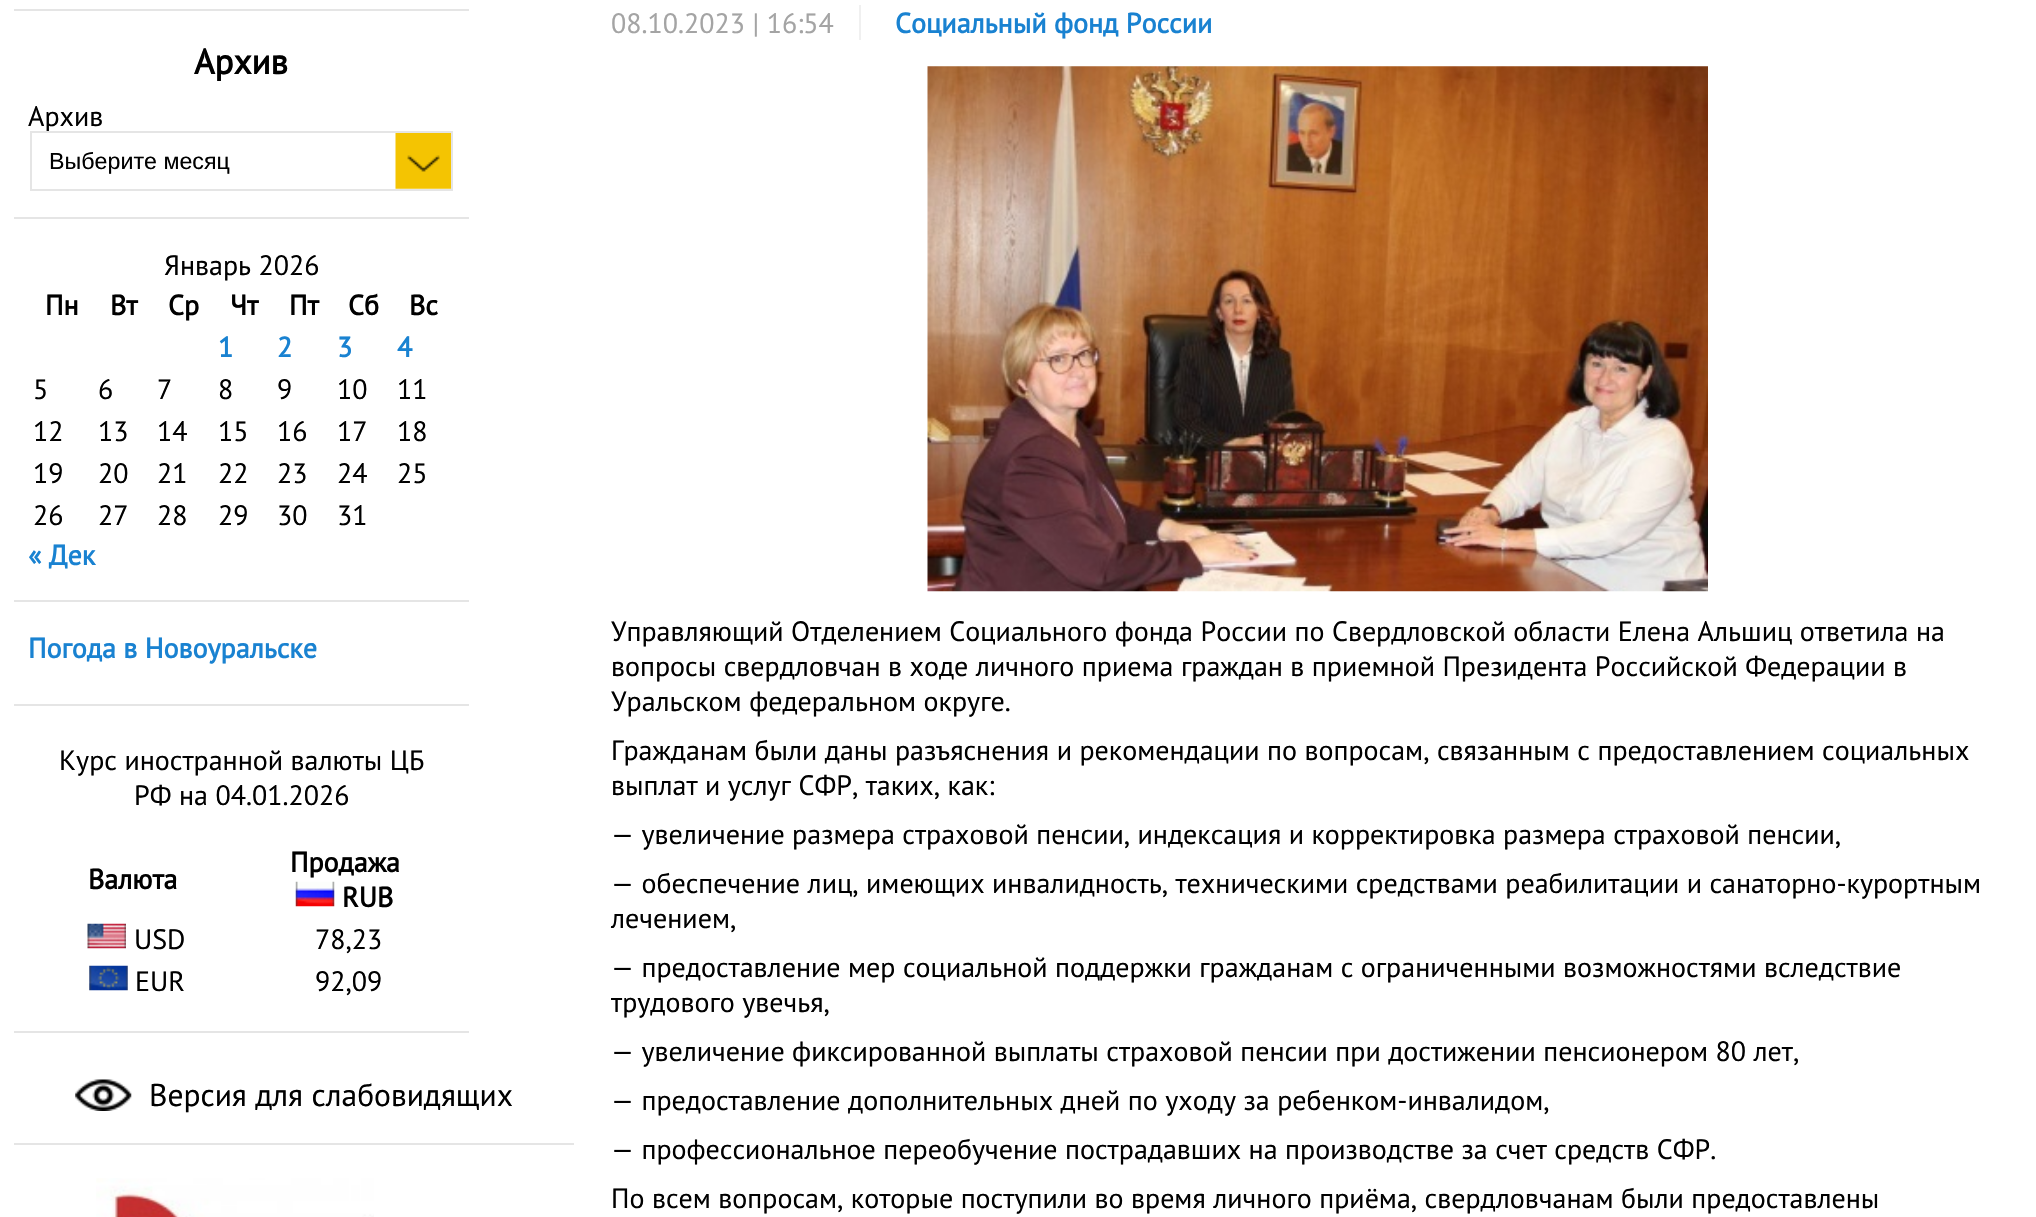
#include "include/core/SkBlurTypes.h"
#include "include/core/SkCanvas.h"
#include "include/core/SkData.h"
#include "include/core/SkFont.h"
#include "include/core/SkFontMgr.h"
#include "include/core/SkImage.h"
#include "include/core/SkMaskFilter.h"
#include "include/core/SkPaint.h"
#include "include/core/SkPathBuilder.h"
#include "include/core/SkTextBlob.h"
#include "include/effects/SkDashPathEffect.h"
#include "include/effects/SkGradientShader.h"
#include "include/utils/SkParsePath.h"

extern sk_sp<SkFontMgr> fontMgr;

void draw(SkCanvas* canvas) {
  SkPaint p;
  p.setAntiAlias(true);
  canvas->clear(SK_ColorWHITE);
  p.setColor(SkColorSetRGB(229, 229, 229));
  canvas->drawRect(SkRect::MakeLTRB(14, 9, 469, 11), p);
  canvas->drawRect(SkRect::MakeLTRB(14, 217, 469, 219), p);
  canvas->drawImageRect(SkImages::DeferredFromEncodedData(SkData::MakeFromFileName("images/1.png")), SkRect::MakeLTRB(395, 133, 451, 189), SkSamplingOptions());
  canvas->drawRect(SkRect::MakeLTRB(14, 600, 469, 602), p);
  canvas->drawRect(SkRect::MakeLTRB(14, 704, 469, 706), p);
  canvas->drawRect(SkRect::MakeLTRB(14, 1031, 469, 1033), p);
  canvas->drawImageRect(SkImages::DeferredFromEncodedData(SkData::MakeFromFileName("images/2.png")), SkRect::MakeLTRB(295, 881, 335, 907), SkSamplingOptions());
  canvas->drawImageRect(SkImages::DeferredFromEncodedData(SkData::MakeFromFileName("images/3.png")), SkRect::MakeLTRB(87, 923, 126, 949), SkSamplingOptions());
  canvas->drawImageRect(SkImages::DeferredFromEncodedData(SkData::MakeFromFileName("images/4.png")), SkRect::MakeLTRB(89, 965, 128, 991), SkSamplingOptions());
  p.setColor(SkColorSetRGB(240, 240, 240));
  canvas->drawRect(SkRect::MakeLTRB(859, 5, 861, 40), p);
  canvas->drawImageRect(SkImages::DeferredFromEncodedData(SkData::MakeFromFileName("images/5.png")), SkRect::MakeLTRB(927, 66, 1708, 592), SkSamplingOptions());
  p.setColor(SkColorSetRGB(229, 229, 229));
  canvas->drawRect(SkRect::MakeLTRB(14, 1143, 574, 1145), p);
  canvas->drawImageRect(SkImages::DeferredFromEncodedData(SkData::MakeFromFileName("images/6.png")), SkRect::MakeLTRB(75, 1079, 132, 1111), SkSamplingOptions());
  canvas->drawImageRect(SkImages::DeferredFromEncodedData(SkData::MakeFromFileName("images/7.png")), SkRect::MakeLTRB(96, 1178, 374, 1217), SkSamplingOptions());
  SkFont font1(fontMgr->matchFamilyStyle("PT Sans", SkFontStyle::Bold()), 35);
  font1.setSubpixel(true);
  p.setColor(SK_ColorBLACK);
  canvas->drawString("Архив", 194, 74, font1, p);
  SkFont font2(fontMgr->matchFamilyStyle("PT Sans", SkFontStyle::Normal()), 28);
  font2.setSubpixel(true);
  canvas->drawString("Архив", 28, 126, font2, p);
  p.setStyle(SkPaint::kStroke_Style);
  p.setStrokeWidth(2);
  p.setColor(SkColorSetRGB(229, 229, 229));
  canvas->drawRect(SkRect::MakeLTRB(31, 132, 452, 190), p);
  SkFont font3(fontMgr->matchFamilyStyle("Liberation Sans", SkFontStyle::Normal()), 23.25f);
  font3.setSubpixel(true);
  p.setStyle(SkPaint::kFill_Style);
  p.setColor(SK_ColorBLACK);
  canvas->drawString("Выберите месяц", 49, 169, font3, p);
  canvas->drawString("Январь 2026", 164, 275, font2, p);
  SkFont font4(fontMgr->matchFamilyStyle("PT Sans", SkFontStyle::Bold()), 28);
  font4.setSubpixel(true);
  canvas->drawString("Пн", 45, 315, font4, p);
  canvas->drawString("Вт", 110, 315, font4, p);
  canvas->drawString("Ср", 168, 315, font4, p);
  canvas->drawString("Чт", 230, 315, font4, p);
  canvas->drawString("Пт", 289, 315, font4, p);
  canvas->drawString("Сб", 348, 315, font4, p);
  canvas->drawString("Вс", 409, 315, font4, p);
  p.setColor(SkColorSetRGB(25, 130, 209));
  canvas->drawString("1", 218, 357, font4, p);
  canvas->drawString("2", 277, 357, font4, p);
  canvas->drawString("3", 337, 357, font4, p);
  canvas->drawString("4", 397, 357, font4, p);
  p.setColor(SK_ColorBLACK);
  canvas->drawString("5", 33, 399, font2, p);
  canvas->drawString("6", 98, 399, font2, p);
  canvas->drawString("7", 157, 399, font2, p);
  canvas->drawString("8", 218, 399, font2, p);
  canvas->drawString("9", 277, 399, font2, p);
  canvas->drawString("10", 337, 399, font2, p);
  canvas->drawString("11", 397, 399, font2, p);
  canvas->drawString("12", 33, 441, font2, p);
  canvas->drawString("13", 98, 441, font2, p);
  canvas->drawString("14", 157, 441, font2, p);
  canvas->drawString("15", 218, 441, font2, p);
  canvas->drawString("16", 277, 441, font2, p);
  canvas->drawString("17", 337, 441, font2, p);
  canvas->drawString("18", 397, 441, font2, p);
  canvas->drawString("19", 33, 483, font2, p);
  canvas->drawString("20", 98, 483, font2, p);
  canvas->drawString("21", 157, 483, font2, p);
  canvas->drawString("22", 218, 483, font2, p);
  canvas->drawString("23", 277, 483, font2, p);
  canvas->drawString("24", 337, 483, font2, p);
  canvas->drawString("25", 397, 483, font2, p);
  canvas->drawString("26", 33, 525, font2, p);
  canvas->drawString("27", 98, 525, font2, p);
  canvas->drawString("28", 157, 525, font2, p);
  canvas->drawString("29", 218, 525, font2, p);
  canvas->drawString("30", 277, 525, font2, p);
  canvas->drawString("31", 337, 525, font2, p);
  p.setColor(SkColorSetRGB(25, 130, 209));
  canvas->drawString("« Дек", 28, 565, font4, p);
  canvas->drawString("Погода в Новоуральске", 28, 658, font4, p);
  p.setColor(SK_ColorBLACK);
  canvas->drawString("Курс иностранной валюты ЦБ", 59, 770, font2, p);
  canvas->drawString("РФ на 04.01.2026", 134, 805, font2, p);
  canvas->drawString("Валюта", 88, 889, font4, p);
  canvas->drawString("Продажа", 290, 872, font4, p);
  canvas->drawString("RUB", 342, 907, font4, p);
  canvas->drawString("USD", 134, 949, font2, p);
  canvas->drawString("78,23", 315, 949, font2, p);
  canvas->drawString("EUR", 135, 991, font2, p);
  canvas->drawString("92,09", 315, 991, font2, p);
  p.setColor(SkColorSetRGB(164, 164, 164));
  canvas->drawString("08.10.2023 | 16:54", 611, 33, font2, p);
  p.setColor(SkColorSetRGB(25, 130, 209));
  canvas->drawString("Социальный фонд России", 895, 33, font4, p);
  p.setColor(SK_ColorBLACK);
  canvas->drawString("Управляющий Отделением Социального фонда России по Свердловской области Елена Альшиц ответила на", 611, 641, font2, p);
  canvas->drawString("вопросы свердловчан в ходе личного приема граждан в приемной Президента Российской Федерации в", 611, 676, font2, p);
  canvas->drawString("Уральском федеральном округе.", 611, 711, font2, p);
  canvas->drawString("Гражданам были даны разъяснения и рекомендации по вопросам, связанным с предоставлением социальных", 611, 760, font2, p);
  canvas->drawString("выплат и услуг СФР, таких, как:", 611, 795, font2, p);
  canvas->drawString("— увеличение размера страховой пенсии, индексация и корректировка размера страховой пенсии,", 611, 844, font2, p);
  canvas->drawString("— обеспечение лиц, имеющих инвалидность, техническими средствами реабилитации и санаторно-курортным", 611, 893, font2, p);
  canvas->drawString("лечением,", 611, 928, font2, p);
  canvas->drawString("— предоставление мер социальной поддержки гражданам с ограниченными возможностями вследствие", 611, 977, font2, p);
  canvas->drawString("трудового увечья,", 611, 1012, font2, p);
  canvas->drawString("— увеличение фиксированной выплаты страховой пенсии при достижении пенсионером 80 лет,", 611, 1061, font2, p);
  canvas->drawString("— предоставление дополнительных дней по уходу за ребенком-инвалидом,", 611, 1110, font2, p);
  canvas->drawString("— профессиональное переобучение пострадавших на производстве за счет средств СФР.", 611, 1159, font2, p);
  canvas->drawString("По всем вопросам, которые поступили во время личного приёма, свердловчанам были предоставлены", 611, 1208, font2, p);
  SkFont font5(fontMgr->matchFamilyStyle("PT Sans", SkFontStyle::Normal()), 31.5f);
  font5.setSubpixel(true);
  canvas->drawString("Версия для слабовидящих", 149, 1106, font5, p);
}
